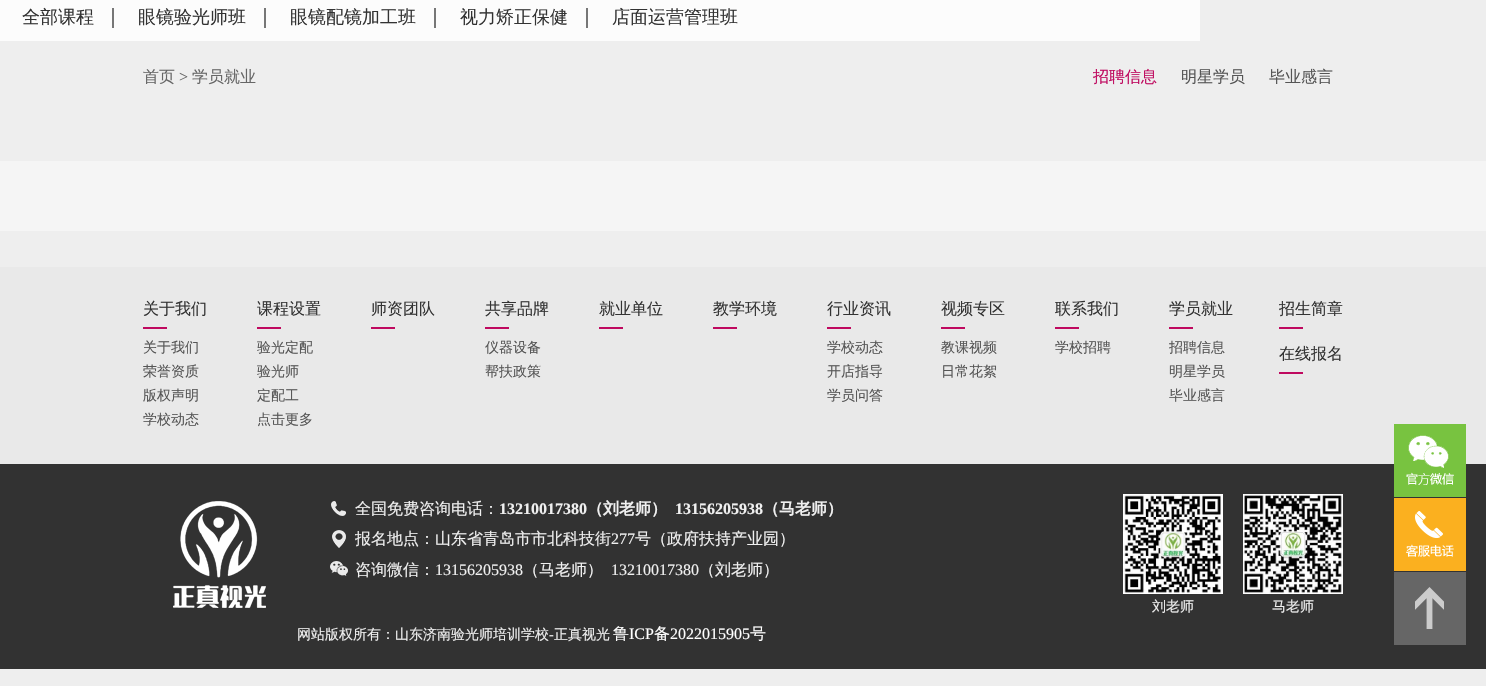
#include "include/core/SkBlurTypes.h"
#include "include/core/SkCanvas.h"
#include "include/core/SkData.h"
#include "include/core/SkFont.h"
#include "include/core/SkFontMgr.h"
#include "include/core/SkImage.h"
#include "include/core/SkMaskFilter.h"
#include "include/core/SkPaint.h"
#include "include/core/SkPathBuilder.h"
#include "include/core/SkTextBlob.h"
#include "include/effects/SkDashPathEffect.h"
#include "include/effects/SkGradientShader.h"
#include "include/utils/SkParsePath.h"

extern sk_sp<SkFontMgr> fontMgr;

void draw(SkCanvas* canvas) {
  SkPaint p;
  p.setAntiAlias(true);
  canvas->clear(SkColorSetRGB(238, 238, 238));
  p.setColor(SkColorSetRGB(252, 252, 252));
  canvas->drawRect(SkRect::MakeLTRB(0, 0, 1200, 41), p);
  p.setColor(SkColorSetRGB(119, 119, 119));
  canvas->drawRect(SkRect::MakeLTRB(112, 8, 114, 28), p);
  canvas->drawRect(SkRect::MakeLTRB(264, 8, 266, 28), p);
  canvas->drawRect(SkRect::MakeLTRB(434, 8, 436, 28), p);
  canvas->drawRect(SkRect::MakeLTRB(586, 8, 588, 28), p);
  p.setColor(SkColorSetRGB(245, 245, 245));
  canvas->drawRect(SkRect::MakeLTRB(0, 161, 1486, 231), p);
  p.setColor(SkColorSetRGB(233, 233, 233));
  canvas->drawRect(SkRect::MakeLTRB(0, 267, 1486, 464), p);
  p.setColor(SkColorSetRGB(191, 9, 95));
  canvas->drawRect(SkRect::MakeLTRB(143, 327, 167, 329), p);
  canvas->drawRect(SkRect::MakeLTRB(257, 327, 281, 329), p);
  canvas->drawRect(SkRect::MakeLTRB(371, 327, 395, 329), p);
  canvas->drawRect(SkRect::MakeLTRB(485, 327, 509, 329), p);
  canvas->drawRect(SkRect::MakeLTRB(599, 327, 623, 329), p);
  canvas->drawRect(SkRect::MakeLTRB(713, 327, 737, 329), p);
  canvas->drawRect(SkRect::MakeLTRB(827, 327, 851, 329), p);
  canvas->drawRect(SkRect::MakeLTRB(941, 327, 965, 329), p);
  canvas->drawRect(SkRect::MakeLTRB(1055, 327, 1079, 329), p);
  canvas->drawRect(SkRect::MakeLTRB(1169, 327, 1193, 329), p);
  canvas->drawRect(SkRect::MakeLTRB(1279, 327, 1303, 329), p);
  canvas->drawRect(SkRect::MakeLTRB(1279, 372, 1303, 374), p);
  p.setColor(SkColorSetRGB(50, 50, 50));
  canvas->drawRect(SkRect::MakeLTRB(0, 464, 1486, 669), p);
  canvas->drawImageRect(SkImages::DeferredFromEncodedData(SkData::MakeFromFileName("images/1.png")), SkRect::MakeLTRB(173, 501, 266, 608), SkSamplingOptions());
  canvas->drawImageRect(SkImages::DeferredFromEncodedData(SkData::MakeFromFileName("images/2.png")), SkRect::MakeLTRB(331, 501, 346, 516), SkSamplingOptions());
  canvas->drawImageRect(SkImages::DeferredFromEncodedData(SkData::MakeFromFileName("images/3.png")), SkRect::MakeLTRB(332, 530, 346, 548), SkSamplingOptions());
  canvas->drawImageRect(SkImages::DeferredFromEncodedData(SkData::MakeFromFileName("images/4.png")), SkRect::MakeLTRB(330, 561, 348, 576), SkSamplingOptions());
  canvas->drawImageRect(SkImages::DeferredFromEncodedData(SkData::MakeFromFileName("images/5.png")), SkRect::MakeLTRB(1123, 494, 1223, 594), SkSamplingOptions());
  canvas->drawImageRect(SkImages::DeferredFromEncodedData(SkData::MakeFromFileName("images/6.png")), SkRect::MakeLTRB(1243, 494, 1343, 594), SkSamplingOptions());
  p.setColor(SkColorSetRGB(120, 195, 64));
  canvas->drawRect(SkRect::MakeLTRB(1394, 424, 1466, 497), p);
  canvas->drawImageRect(SkImages::DeferredFromEncodedData(SkData::MakeFromFileName("images/7.png")), SkRect::MakeLTRB(1406, 435, 1454, 485), SkSamplingOptions());
  p.setColor(SkColorSetRGB(251, 176, 31));
  canvas->drawRect(SkRect::MakeLTRB(1394, 498, 1466, 571), p);
  canvas->drawImageRect(SkImages::DeferredFromEncodedData(SkData::MakeFromFileName("images/8.png")), SkRect::MakeLTRB(1406, 511, 1454, 557), SkSamplingOptions());
  p.setColor(SkColorSetRGB(102, 102, 102));
  canvas->drawRect(SkRect::MakeLTRB(1394, 572, 1466, 645), p);
  canvas->drawImageRect(SkImages::DeferredFromEncodedData(SkData::MakeFromFileName("images/9.png")), SkRect::MakeLTRB(1415, 587, 1444, 629), SkSamplingOptions());
  SkFont font1(fontMgr->matchFamilyStyle("WenQuanYi Zen Hei", SkFontStyle(500, SkFontStyle::kNormal_Width, SkFontStyle::kUpright_Slant)), 18);
  font1.setSubpixel(true);
  p.setColor(SkColorSetRGB(51, 51, 51));
  canvas->drawString("全部课程", 22, 23, font1, p);
  canvas->drawString("眼镜验光师班", 138, 23, font1, p);
  canvas->drawString("眼镜配镜加工班", 290, 23, font1, p);
  canvas->drawString("视力矫正保健", 460, 23, font1, p);
  canvas->drawString("店面运营管理班", 612, 23, font1, p);
  SkFont font2(fontMgr->matchFamilyStyle("WenQuanYi Zen Hei", SkFontStyle(500, SkFontStyle::kNormal_Width, SkFontStyle::kUpright_Slant)), 16);
  font2.setSubpixel(true);
  p.setColor(SkColorSetRGB(102, 102, 102));
  canvas->drawString("首页", 143, 82, font2, p);
  SkFont font3(fontMgr->matchFamilyStyle("Liberation Serif", SkFontStyle::Normal()), 16);
  font3.setSubpixel(true);
  canvas->drawString(">", 179, 82, font3, p);
  canvas->drawString("学员就业", 192, 82, font2, p);
  p.setColor(SkColorSetRGB(191, 9, 95));
  canvas->drawString("招聘信息", 1093, 82, font2, p);
  p.setColor(SkColorSetRGB(85, 85, 85));
  canvas->drawString("明星学员", 1181, 82, font2, p);
  canvas->drawString("毕业感言", 1269, 82, font2, p);
  p.setColor(SkColorSetRGB(51, 51, 51));
  canvas->drawString("关于我们", 143, 314, font2, p);
  SkFont font4(fontMgr->matchFamilyStyle("WenQuanYi Zen Hei", SkFontStyle(500, SkFontStyle::kNormal_Width, SkFontStyle::kUpright_Slant)), 14);
  font4.setSubpixel(true);
  p.setColor(SkColorSetRGB(85, 85, 85));
  canvas->drawString("关于我们", 143, 352, font4, p);
  canvas->drawString("荣誉资质", 143, 376, font4, p);
  canvas->drawString("版权声明", 143, 400, font4, p);
  canvas->drawString("学校动态", 143, 424, font4, p);
  p.setColor(SkColorSetRGB(51, 51, 51));
  canvas->drawString("课程设置", 257, 314, font2, p);
  p.setColor(SkColorSetRGB(85, 85, 85));
  canvas->drawString("验光定配", 257, 352, font4, p);
  canvas->drawString("验光师", 257, 376, font4, p);
  canvas->drawString("定配工", 257, 400, font4, p);
  canvas->drawString("点击更多", 257, 424, font4, p);
  p.setColor(SkColorSetRGB(51, 51, 51));
  canvas->drawString("师资团队", 371, 314, font2, p);
  canvas->drawString("共享品牌", 485, 314, font2, p);
  p.setColor(SkColorSetRGB(85, 85, 85));
  canvas->drawString("仪器设备", 485, 352, font4, p);
  canvas->drawString("帮扶政策", 485, 376, font4, p);
  p.setColor(SkColorSetRGB(51, 51, 51));
  canvas->drawString("就业单位", 599, 314, font2, p);
  canvas->drawString("教学环境", 713, 314, font2, p);
  canvas->drawString("行业资讯", 827, 314, font2, p);
  p.setColor(SkColorSetRGB(85, 85, 85));
  canvas->drawString("学校动态", 827, 352, font4, p);
  canvas->drawString("开店指导", 827, 376, font4, p);
  canvas->drawString("学员问答", 827, 400, font4, p);
  p.setColor(SkColorSetRGB(51, 51, 51));
  canvas->drawString("视频专区", 941, 314, font2, p);
  p.setColor(SkColorSetRGB(85, 85, 85));
  canvas->drawString("教课视频", 941, 352, font4, p);
  canvas->drawString("日常花絮", 941, 376, font4, p);
  p.setColor(SkColorSetRGB(51, 51, 51));
  canvas->drawString("联系我们", 1055, 314, font2, p);
  p.setColor(SkColorSetRGB(85, 85, 85));
  canvas->drawString("学校招聘", 1055, 352, font4, p);
  p.setColor(SkColorSetRGB(51, 51, 51));
  canvas->drawString("学员就业", 1169, 314, font2, p);
  p.setColor(SkColorSetRGB(85, 85, 85));
  canvas->drawString("招聘信息", 1169, 352, font4, p);
  canvas->drawString("明星学员", 1169, 376, font4, p);
  canvas->drawString("毕业感言", 1169, 400, font4, p);
  p.setColor(SkColorSetRGB(51, 51, 51));
  canvas->drawString("招生简章", 1279, 314, font2, p);
  canvas->drawString("在线报名", 1279, 359, font2, p);
  p.setColor(SkColorSetRGB(240, 240, 240));
  canvas->drawString("全国免费咨询电话：", 355, 514, font2, p);
  SkFont font5(fontMgr->matchFamilyStyle("Liberation Serif", SkFontStyle::Bold()), 16);
  font5.setSubpixel(true);
  canvas->drawString("13210017380", 499, 514, font5, p);
  SkFont font6(fontMgr->matchFamilyStyle("WenQuanYi Zen Hei", SkFontStyle::Bold()), 16);
  font6.setSubpixel(true);
  canvas->drawString("（刘老师）", 587, 514, font6, p);
  canvas->drawString("13156205938", 675, 514, font5, p);
  canvas->drawString("（马老师）", 763, 514, font6, p);
  canvas->drawString("报名地点：山东省青岛市市北科技街", 355, 544, font2, p);
  canvas->drawString("277", 611, 544, font3, p);
  canvas->drawString("号（政府扶持产业园）", 635, 544, font2, p);
  canvas->drawString("咨询微信：", 355, 575, font2, p);
  canvas->drawString("13156205938", 435, 575, font3, p);
  canvas->drawString("（马老师）", 523, 575, font2, p);
  canvas->drawString("13210017380", 611, 575, font3, p);
  canvas->drawString("（刘老师）", 699, 575, font2, p);
  canvas->drawString("刘老师", 1152, 611, font4, p);
  canvas->drawString("马老师", 1272, 611, font4, p);
  canvas->drawString("网站版权所有：山东济南验光师培训学校", 297, 639, font4, p);
  SkFont font7(fontMgr->matchFamilyStyle("Liberation Serif", SkFontStyle::Normal()), 14);
  font7.setSubpixel(true);
  canvas->drawString("-", 549, 639, font7, p);
  canvas->drawString("正真视光", 554, 639, font4, p);
  p.setColor(SK_ColorWHITE);
  canvas->drawString("鲁", 613, 639, font2, p);
  canvas->drawString("ICP", 629, 639, font3, p);
  canvas->drawString("备", 654, 639, font2, p);
  canvas->drawString("2022015905", 670, 639, font3, p);
  canvas->drawString("号", 750, 639, font2, p);
}
